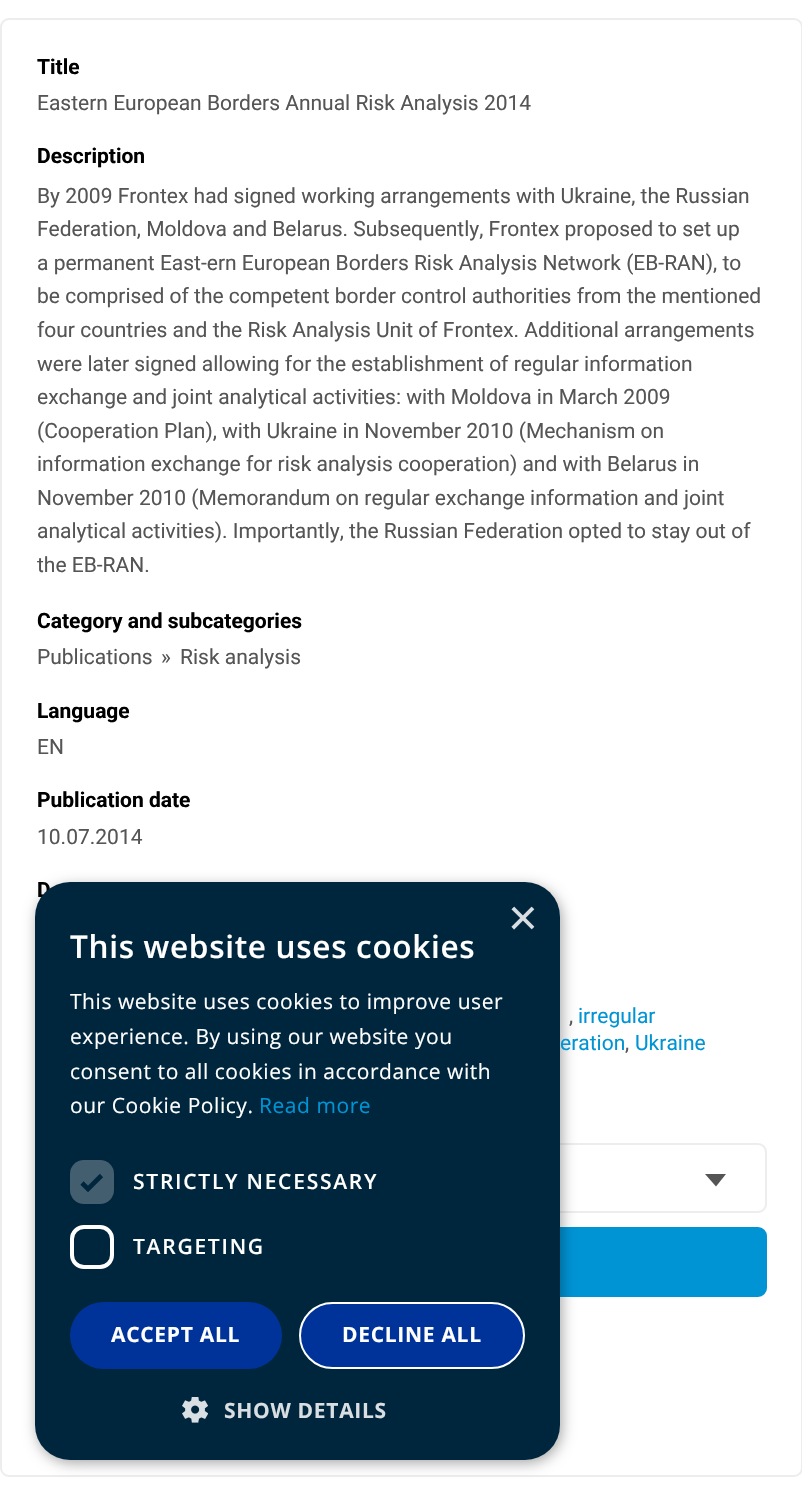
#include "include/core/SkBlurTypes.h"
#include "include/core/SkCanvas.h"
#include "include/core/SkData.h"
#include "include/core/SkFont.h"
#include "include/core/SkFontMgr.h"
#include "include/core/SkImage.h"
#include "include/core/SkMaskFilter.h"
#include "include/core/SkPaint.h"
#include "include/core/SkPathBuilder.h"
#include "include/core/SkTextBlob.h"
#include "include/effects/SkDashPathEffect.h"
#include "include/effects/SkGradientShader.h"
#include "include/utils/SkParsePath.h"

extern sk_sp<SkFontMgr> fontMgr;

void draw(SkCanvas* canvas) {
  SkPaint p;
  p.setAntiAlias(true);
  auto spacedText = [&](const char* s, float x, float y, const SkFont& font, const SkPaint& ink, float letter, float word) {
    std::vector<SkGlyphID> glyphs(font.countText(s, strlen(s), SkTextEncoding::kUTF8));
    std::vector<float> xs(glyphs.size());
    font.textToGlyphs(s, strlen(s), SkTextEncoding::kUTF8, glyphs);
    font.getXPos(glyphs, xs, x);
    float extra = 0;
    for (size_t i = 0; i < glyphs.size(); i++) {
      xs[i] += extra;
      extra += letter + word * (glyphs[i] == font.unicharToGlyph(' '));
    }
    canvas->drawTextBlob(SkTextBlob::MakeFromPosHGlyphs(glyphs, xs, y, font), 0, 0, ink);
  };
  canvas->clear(SK_ColorWHITE);
  p.setStyle(SkPaint::kStroke_Style);
  p.setStrokeWidth(2);
  p.setColor(SkColorSetRGB(237, 237, 237));
  canvas->drawRoundRect(SkRect::MakeLTRB(1, 19, 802, 1476), 8, 8, p);
  canvas->drawRoundRect(SkRect::MakeLTRB(38, 1144, 766, 1212), 8, 8, p);
  p.setStyle(SkPaint::kFill_Style);
  p.setColor(SkColorSetRGB(85, 85, 85));
  canvas->drawPath(SkPathBuilder().moveTo(705, 1174).lineTo(726, 1174).lineTo(716, 1186.5f).close().detach(), p);
  p.setColor(SkColorSetRGB(0, 148, 213));
  canvas->drawRoundRect(SkRect::MakeLTRB(38, 1228, 766, 1296), 8, 8, p);
  p.setStyle(SkPaint::kStroke_Style);
  canvas->drawRoundRect(SkRect::MakeLTRB(38, 1228, 766, 1296), 8, 8, p);
  p.setStyle(SkPaint::kFill_Style);
  p.setColor(SkColorSetARGB(89, 0, 0, 0));
  p.setMaskFilter(SkMaskFilter::MakeBlur(kNormal_SkBlurStyle, 7));
  canvas->drawRoundRect(SkRect::MakeLTRB(37, 886, 562, 1463), 35, 35, p);
  p.setMaskFilter(nullptr);
  SkFont font1(fontMgr->matchFamilyStyle("Roboto", SkFontStyle::Bold()), 21);
  font1.setSubpixel(true);
  p.setColor(SK_ColorBLACK);
  canvas->drawString("Title", 37, 74, font1, p);
  SkFont font2(fontMgr->matchFamilyStyle("Roboto", SkFontStyle::Normal()), 21);
  font2.setSubpixel(true);
  p.setColor(SkColorSetRGB(85, 85, 85));
  canvas->drawString("Eastern European Borders Annual Risk Analysis 2014", 37, 110, font2, p);
  p.setColor(SK_ColorBLACK);
  canvas->drawString("Description", 37, 163, font1, p);
  p.setColor(SkColorSetRGB(85, 85, 85));
  canvas->drawString("By 2009 Frontex had signed working arrangements with Ukraine, the Russian", 37, 203, font2, p);
  canvas->drawString("Federation, Moldova and Belarus. Subsequently, Frontex proposed to set up", 37, 236, font2, p);
  canvas->drawString("a permanent East-ern European Borders Risk Analysis Network (EB-RAN), to", 37, 270, font2, p);
  canvas->drawString("be comprised of the competent border control authorities from the mentioned", 37, 303, font2, p);
  canvas->drawString("four countries and the Risk Analysis Unit of Frontex. Additional arrangements", 37, 337, font2, p);
  canvas->drawString("were later signed allowing for the establishment of regular information", 37, 371, font2, p);
  canvas->drawString("exchange and joint analytical activities: with Moldova in March 2009", 37, 404, font2, p);
  canvas->drawString("(Cooperation Plan), with Ukraine in November 2010 (Mechanism on", 37, 438, font2, p);
  canvas->drawString("information exchange for risk analysis cooperation) and with Belarus in", 37, 471, font2, p);
  canvas->drawString("November 2010 (Memorandum on regular exchange information and joint", 37, 505, font2, p);
  canvas->drawString("analytical activities). Importantly, the Russian Federation opted to stay out of", 37, 538, font2, p);
  canvas->drawString("the EB-RAN.", 37, 572, font2, p);
  p.setColor(SK_ColorBLACK);
  canvas->drawString("Category and subcategories", 37, 628, font1, p);
  p.setColor(SkColorSetRGB(85, 85, 85));
  canvas->drawString("Publications", 37, 664, font2, p);
  canvas->drawString("»", 161, 664, font2, p);
  canvas->drawString("Risk analysis", 180, 664, font2, p);
  p.setColor(SK_ColorBLACK);
  canvas->drawString("Language", 37, 718, font1, p);
  p.setColor(SkColorSetRGB(85, 85, 85));
  canvas->drawString("EN", 37, 754, font2, p);
  p.setColor(SK_ColorBLACK);
  canvas->drawString("Publication date", 37, 807, font1, p);
  p.setColor(SkColorSetRGB(85, 85, 85));
  canvas->drawString("10.07.2014", 37, 844, font2, p);
  p.setColor(SK_ColorBLACK);
  canvas->drawString("D", 37, 897, font1, p);
  p.setColor(SkColorSetRGB(85, 85, 85));
  canvas->drawString(",", 569, 1023, font2, p);
  p.setColor(SkColorSetRGB(0, 148, 213));
  canvas->drawString("irregular", 578, 1023, font2, p);
  canvas->drawString("eration", 560, 1050, font2, p);
  p.setColor(SkColorSetRGB(85, 85, 85));
  canvas->drawString(",", 625, 1050, font2, p);
  p.setColor(SkColorSetRGB(0, 148, 213));
  canvas->drawString("Ukraine", 635, 1050, font2, p);
  p.setColor(SkColorSetRGB(0, 38, 61));
  canvas->drawRoundRect(SkRect::MakeLTRB(35, 882, 560, 1460), 35, 35, p);
  SkFont font3(fontMgr->matchFamilyStyle("Liberation Sans", SkFontStyle::Normal()), 51);
  font3.setSubpixel(true);
  p.setColor(SkColorSetRGB(217, 222, 226));
  canvas->drawString("×", 508, 935, font3, p);
  SkFont font4(fontMgr->matchFamilyStyle("Open Sans", SkFontStyle(600, SkFontStyle::kNormal_Width, SkFontStyle::kUpright_Slant)), 31.5f);
  font4.setSubpixel(true);
  p.setColor(SK_ColorWHITE);
  spacedText("This website uses cookies", 70, 958, font4, p, 0.7f, 0);
  SkFont font5(fontMgr->matchFamilyStyle("Open Sans", SkFontStyle::Normal()), 21);
  font5.setSubpixel(true);
  spacedText("This website uses cookies to improve user", 70, 1009, font5, p, 0.55f, 0);
  spacedText("experience. By using our website you", 70, 1044, font5, p, 0.55f, 0);
  spacedText("consent to all cookies in accordance with", 70, 1079, font5, p, 0.55f, 0);
  spacedText("our Cookie Policy.", 70, 1113, font5, p, 0.55f, 0);
  p.setColor(SkColorSetRGB(0, 148, 213));
  spacedText("Read more", 259, 1113, font5, p, 0.55f, 0);
  p.setColor(SkColorSetRGB(66, 94, 111));
  canvas->drawRoundRect(SkRect::MakeLTRB(70, 1160, 114, 1204), 14, 14, p);
  p.setStyle(SkPaint::kStroke_Style);
  p.setStrokeWidth(4.6f);
  p.setColor(SkColorSetRGB(0, 38, 61));
  canvas->drawPath(SkPathBuilder().moveTo(82, 1183).lineTo(88, 1189).lineTo(101.5f, 1175.5f).detach(), p);
  SkFont font6(fontMgr->matchFamilyStyle("Open Sans", SkFontStyle(600, SkFontStyle::kNormal_Width, SkFontStyle::kUpright_Slant)), 21);
  font6.setSubpixel(true);
  p.setStyle(SkPaint::kFill_Style);
  p.setColor(SK_ColorWHITE);
  spacedText("STRICTLY NECESSARY", 133, 1189, font6, p, 1.75f, 0);
  p.setStyle(SkPaint::kStroke_Style);
  p.setStrokeWidth(4);
  canvas->drawRoundRect(SkRect::MakeLTRB(72, 1227, 112, 1267), 12, 12, p);
  p.setStyle(SkPaint::kFill_Style);
  spacedText("TARGETING", 133, 1254, font6, p, 1.75f, 0);
  p.setColor(SkColorSetRGB(0, 51, 153));
  canvas->drawRoundRect(SkRect::MakeLTRB(70, 1302, 282, 1369), 33.5f, 33.5f, p);
  SkFont font7(fontMgr->matchFamilyStyle("Open Sans", SkFontStyle::Bold()), 21);
  font7.setSubpixel(true);
  p.setColor(SK_ColorWHITE);
  spacedText("ACCEPT ALL", 111, 1342, font7, p, 0.7f, 0);
  p.setColor(SkColorSetRGB(0, 51, 153));
  canvas->drawRoundRect(SkRect::MakeLTRB(300, 1303, 524, 1368), 32.5f, 32.5f, p);
  p.setStyle(SkPaint::kStroke_Style);
  p.setStrokeWidth(2);
  p.setColor(SK_ColorWHITE);
  canvas->drawRoundRect(SkRect::MakeLTRB(300, 1303, 524, 1368), 32.5f, 32.5f, p);
  p.setStyle(SkPaint::kFill_Style);
  spacedText("DECLINE ALL", 342, 1342, font7, p, 0.7f, 0);
  canvas->drawImageRect(SkImages::DeferredFromEncodedData(SkData::MakeFromFileName("images/1.png")), SkRect::MakeLTRB(182, 1397, 208, 1423), SkSamplingOptions());
  p.setColor(SkColorSetRGB(217, 222, 226));
  spacedText("SHOW DETAILS", 224, 1418, font7, p, 0.7f, 0);
}
